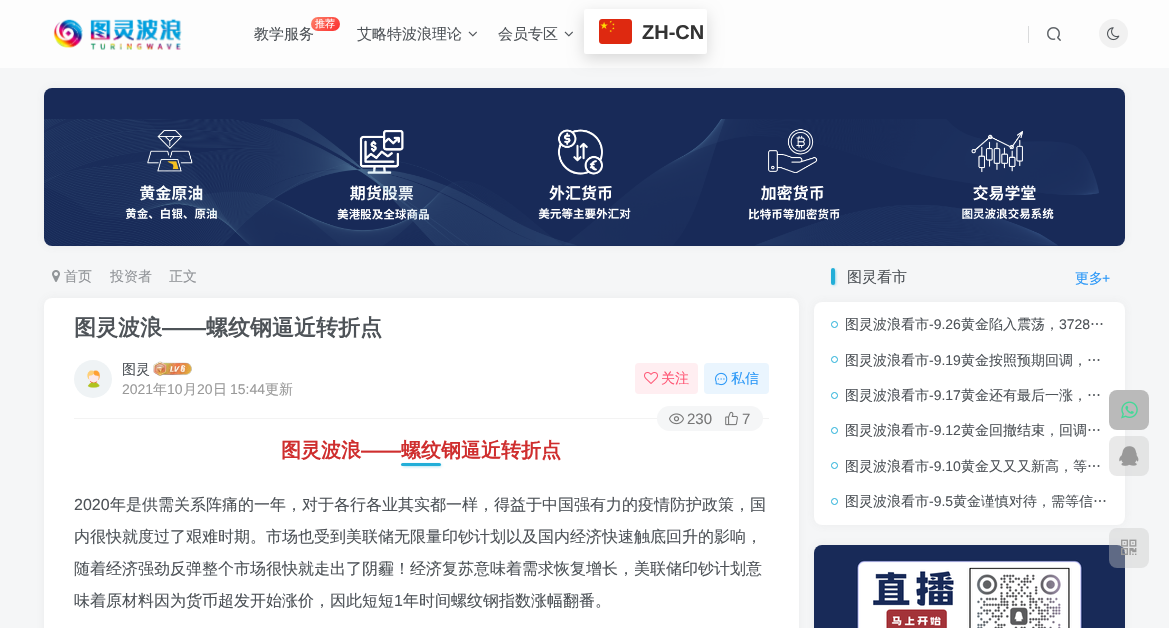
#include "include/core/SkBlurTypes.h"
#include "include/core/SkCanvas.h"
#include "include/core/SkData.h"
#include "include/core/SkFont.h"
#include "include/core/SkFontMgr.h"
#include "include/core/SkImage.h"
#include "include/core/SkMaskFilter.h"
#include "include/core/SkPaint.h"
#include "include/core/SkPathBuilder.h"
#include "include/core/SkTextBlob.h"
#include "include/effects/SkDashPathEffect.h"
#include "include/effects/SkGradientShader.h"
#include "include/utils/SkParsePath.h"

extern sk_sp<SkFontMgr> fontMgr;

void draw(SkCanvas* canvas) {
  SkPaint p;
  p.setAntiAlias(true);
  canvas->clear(SkColorSetRGB(245, 246, 247));
  p.setColor(SkColorSetRGB(253, 253, 253));
  canvas->drawRect(SkRect::MakeLTRB(0, 0, 1169, 68), p);
  canvas->drawImageRect(SkImages::DeferredFromEncodedData(SkData::MakeFromFileName("images/1.png")), SkRect::MakeLTRB(53, 18, 182, 50), SkSamplingOptions());
  canvas->drawImageRect(SkImages::DeferredFromEncodedData(SkData::MakeFromFileName("images/2.png")), SkRect::MakeLTRB(468, 31, 477, 37), SkSamplingOptions());
  canvas->drawImageRect(SkImages::DeferredFromEncodedData(SkData::MakeFromFileName("images/2.png")), SkRect::MakeLTRB(564, 31, 573, 37), SkSamplingOptions());
  p.setColor(SkColorSetARGB(38, 0, 0, 0));
  p.setMaskFilter(SkMaskFilter::MakeBlur(kNormal_SkBlurStyle, 7.5f));
  canvas->drawRoundRect(SkRect::MakeLTRB(584, 14, 707, 59), 2, 2, p);
  p.setMaskFilter(nullptr);
  p.setColor(SK_ColorWHITE);
  canvas->drawRoundRect(SkRect::MakeLTRB(584, 9, 707, 54), 2, 2, p);
  canvas->drawImageRect(SkImages::DeferredFromEncodedData(SkData::MakeFromFileName("images/3.png")), SkRect::MakeLTRB(599, 19, 632, 44), SkSamplingOptions());
  p.setColor(SkColorSetRGB(218, 219, 220));
  canvas->drawRect(SkRect::MakeLTRB(1028, 26, 1029, 43), p);
  canvas->drawImageRect(SkImages::DeferredFromEncodedData(SkData::MakeFromFileName("images/4.png")), SkRect::MakeLTRB(1047, 27, 1061, 41), SkSamplingOptions());
  p.setColor(SkColorSetRGB(241, 241, 241));
  canvas->drawCircle(1113.5f, 33.5f, 14.5f, p);
  canvas->drawImageRect(SkImages::DeferredFromEncodedData(SkData::MakeFromFileName("images/5.png")), SkRect::MakeLTRB(1107, 27, 1120, 41), SkSamplingOptions());
  p.setColor(SkColorSetARGB(20, 116, 116, 116));
  p.setMaskFilter(SkMaskFilter::MakeBlur(kNormal_SkBlurStyle, 5));
  canvas->drawRoundRect(SkRect::MakeLTRB(44, 88, 1125, 246), 8, 8, p);
  p.setMaskFilter(nullptr);
  p.setColor(SK_ColorWHITE);
  canvas->drawRoundRect(SkRect::MakeLTRB(44, 88, 1125, 246), 8, 8, p);
  canvas->drawImageRect(SkImages::DeferredFromEncodedData(SkData::MakeFromFileName("images/6.png")), SkRect::MakeLTRB(44, 88, 1125, 246), SkSamplingOptions());
  canvas->drawImageRect(SkImages::DeferredFromEncodedData(SkData::MakeFromFileName("images/7.png")), SkRect::MakeLTRB(52, 270, 60, 282), SkSamplingOptions());
  p.setColor(SkColorSetARGB(20, 116, 116, 116));
  p.setMaskFilter(SkMaskFilter::MakeBlur(kNormal_SkBlurStyle, 5));
  canvas->drawRoundRect(SkRect::MakeLTRB(814, 302, 1125, 525), 8, 8, p);
  p.setMaskFilter(nullptr);
  p.setColor(SK_ColorWHITE);
  canvas->drawRoundRect(SkRect::MakeLTRB(814, 302, 1125, 525), 8, 8, p);
  p.setColor(SkColorSetARGB(20, 116, 116, 116));
  p.setMaskFilter(SkMaskFilter::MakeBlur(kNormal_SkBlurStyle, 5));
  canvas->drawRoundRect(SkRect::MakeLTRB(44, 298, 799, 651), 8, 8, p);
  p.setMaskFilter(nullptr);
  p.setColor(SK_ColorWHITE);
  canvas->drawRoundRect(SkRect::MakeLTRB(44, 298, 799, 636), 8, 8, p);
  canvas->drawImageRect(SkImages::DeferredFromEncodedData(SkData::MakeFromFileName("images/8.png")), SkRect::MakeLTRB(74, 360, 112, 398), SkSamplingOptions());
  canvas->drawImageRect(SkImages::DeferredFromEncodedData(SkData::MakeFromFileName("images/9.png")), SkRect::MakeLTRB(153, 361, 192, 376), SkSamplingOptions());
  p.setColor(SkColorSetRGB(255, 238, 241));
  canvas->drawRoundRect(SkRect::MakeLTRB(635, 363, 698, 394), 4, 4, p);
  canvas->drawImageRect(SkImages::DeferredFromEncodedData(SkData::MakeFromFileName("images/10.png")), SkRect::MakeLTRB(644, 372, 658, 384), SkSamplingOptions());
  p.setColor(SkColorSetRGB(234, 245, 254));
  canvas->drawRoundRect(SkRect::MakeLTRB(704, 363, 769, 394), 4, 4, p);
  canvas->drawImageRect(SkImages::DeferredFromEncodedData(SkData::MakeFromFileName("images/11.png")), SkRect::MakeLTRB(715, 372, 728, 386), SkSamplingOptions());
  p.setColor(SkColorSetRGB(243, 243, 243));
  canvas->drawRect(SkRect::MakeLTRB(74, 418, 769, 419), p);
  p.setColor(SkColorSetRGB(245, 246, 247));
  canvas->drawRoundRect(SkRect::MakeLTRB(657, 406, 763, 431), 12.5f, 12.5f, p);
  canvas->drawImageRect(SkImages::DeferredFromEncodedData(SkData::MakeFromFileName("images/12.png")), SkRect::MakeLTRB(669, 413, 684, 425), SkSamplingOptions());
  canvas->drawImageRect(SkImages::DeferredFromEncodedData(SkData::MakeFromFileName("images/13.png")), SkRect::MakeLTRB(725, 411, 738, 426), SkSamplingOptions());
  p.setColor(SkColorSetRGB(34, 174, 216));
  p.setMaskFilter(SkMaskFilter::MakeBlur(kNormal_SkBlurStyle, 1.5f));
  canvas->drawRoundRect(SkRect::MakeLTRB(403, 465, 441, 466), 0.5f, 0.5f, p);
  p.setMaskFilter(nullptr);
  canvas->drawRoundRect(SkRect::MakeLTRB(401, 463, 441, 466), 1.5f, 1.5f, p);
  p.setMaskFilter(SkMaskFilter::MakeBlur(kNormal_SkBlurStyle, 1.5f));
  canvas->drawRoundRect(SkRect::MakeLTRB(833, 270, 835, 285), 1, 1, p);
  p.setMaskFilter(nullptr);
  canvas->drawRoundRect(SkRect::MakeLTRB(831, 268, 835, 285), 2, 2, p);
  p.setStyle(SkPaint::kStroke_Style);
  p.setStrokeWidth(1);
  canvas->drawCircle(834.5f, 324.5f, 3, p);
  canvas->drawCircle(834.5f, 359.5f, 3, p);
  canvas->drawCircle(834.5f, 395.5f, 3, p);
  canvas->drawCircle(834.5f, 430.5f, 3, p);
  canvas->drawCircle(834.5f, 465.5f, 3, p);
  canvas->drawCircle(834.5f, 501.5f, 3, p);
  p.setStyle(SkPaint::kFill_Style);
  p.setColor(SkColorSetARGB(20, 116, 116, 116));
  p.setMaskFilter(SkMaskFilter::MakeBlur(kNormal_SkBlurStyle, 5));
  canvas->drawRoundRect(SkRect::MakeLTRB(814, 545, 1125, 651), 8, 8, p);
  p.setMaskFilter(nullptr);
  canvas->drawImageRect(SkImages::DeferredFromEncodedData(SkData::MakeFromFileName("images/14.png")), SkRect::MakeLTRB(814, 545, 1125, 628), SkSamplingOptions());
  p.setColor(SkColorSetRGB(186, 186, 186));
  canvas->drawRoundRect(SkRect::MakeLTRB(1109, 390, 1149, 430), 8, 8, p);
  canvas->drawImageRect(SkImages::DeferredFromEncodedData(SkData::MakeFromFileName("images/15.png")), SkRect::MakeLTRB(1121, 401, 1138, 419), SkSamplingOptions());
  p.setColor(SkColorSetARGB(102, 200, 200, 200));
  canvas->drawRoundRect(SkRect::MakeLTRB(1109, 436, 1149, 476), 8, 8, p);
  canvas->drawImageRect(SkImages::DeferredFromEncodedData(SkData::MakeFromFileName("images/16.png")), SkRect::MakeLTRB(1119, 446, 1139, 466), SkSamplingOptions());
  canvas->drawRoundRect(SkRect::MakeLTRB(1109, 528, 1149, 568), 8, 8, p);
  canvas->drawImageRect(SkImages::DeferredFromEncodedData(SkData::MakeFromFileName("images/17.png")), SkRect::MakeLTRB(1121, 539, 1137, 555), SkSamplingOptions());
  SkFont font1(fontMgr->matchFamilyStyle("WenQuanYi Zen Hei", SkFontStyle(500, SkFontStyle::kNormal_Width, SkFontStyle::kUpright_Slant)), 15);
  font1.setSubpixel(true);
  p.setColor(SkColorSetRGB(78, 83, 88));
  canvas->drawString("教学服务", 254, 39, font1, p);
  {
    const SkColor colors[] = {SkColorSetRGB(253, 122, 100), SkColorSetRGB(251, 45, 45)};
    const float stops[] = {0.1f, 1};
    const SkPoint ends[] = {{315, 13}, {336, 35}};
    p.setShader(SkGradientShader::MakeLinear(ends, colors, stops, 2, SkTileMode::kClamp));
    p.setAlpha(255);
  }
  canvas->drawRoundRect(SkRect::MakeLTRB(311, 17, 340, 31), 7, 7, p);
  SkFont font2(fontMgr->matchFamilyStyle("WenQuanYi Zen Hei", SkFontStyle(500, SkFontStyle::kNormal_Width, SkFontStyle::kUpright_Slant)), 10);
  font2.setSubpixel(true);
  p.setShader(nullptr);
  p.setColor(SK_ColorWHITE);
  canvas->drawString("推荐", 315, 27, font2, p);
  p.setColor(SkColorSetRGB(78, 83, 88));
  canvas->drawString("艾略特波浪理论", 357, 39, font1, p);
  canvas->drawString("会员专区", 498, 39, font1, p);
  SkFont font3(fontMgr->matchFamilyStyle("Liberation Sans", SkFontStyle::Bold()), 20);
  font3.setSubpixel(true);
  p.setColor(SkColorSetRGB(51, 51, 51));
  canvas->drawString("ZH-CN", 642, 39, font3, p);
  SkFont font4(fontMgr->matchFamilyStyle("WenQuanYi Zen Hei", SkFontStyle(500, SkFontStyle::kNormal_Width, SkFontStyle::kUpright_Slant)), 14);
  font4.setSubpixel(true);
  p.setColor(SkColorSetRGB(145, 148, 152));
  canvas->drawString("首页", 64, 281, font4, p);
  canvas->drawString("投资者", 110, 281, font4, p);
  canvas->drawString("正文", 169, 281, font4, p);
  SkFont font5(fontMgr->matchFamilyStyle("WenQuanYi Zen Hei", SkFontStyle::Bold()), 22);
  font5.setSubpixel(true);
  p.setColor(SkColorSetRGB(78, 83, 88));
  canvas->drawString("图灵波浪", 74, 335, font5, p);
  SkFont font6(fontMgr->matchFamilyStyle("Liberation Sans", SkFontStyle::Bold()), 22);
  font6.setSubpixel(true);
  canvas->drawString("——", 162, 335, font6, p);
  canvas->drawString("螺纹钢逼近转折点", 206, 335, font5, p);
  canvas->drawString("图灵", 122, 374, font4, p);
  SkFont font7(fontMgr->matchFamilyStyle("Liberation Sans", SkFontStyle::Normal()), 14);
  font7.setSubpixel(true);
  p.setColor(SkColorSetRGB(153, 153, 153));
  canvas->drawString("2021", 122, 394, font7, p);
  canvas->drawString("年", 153, 394, font4, p);
  canvas->drawString("10", 167, 394, font7, p);
  canvas->drawString("月", 183, 394, font4, p);
  canvas->drawString("20", 197, 394, font7, p);
  canvas->drawString("日", 213, 394, font4, p);
  canvas->drawString("15:44", 230, 394, font7, p);
  canvas->drawString("更新", 265, 394, font4, p);
  p.setColor(SkColorSetRGB(255, 84, 115));
  canvas->drawString("关注", 661, 383, font4, p);
  p.setColor(SkColorSetRGB(41, 151, 247));
  canvas->drawString("私信", 731, 383, font4, p);
  SkFont font8(fontMgr->matchFamilyStyle("Liberation Sans", SkFontStyle::Normal()), 15);
  font8.setSubpixel(true);
  p.setColor(SkColorSetRGB(119, 119, 119));
  canvas->drawString("230", 687, 424, font8, p);
  canvas->drawString("7", 742, 424, font8, p);
  SkFont font9(fontMgr->matchFamilyStyle("WenQuanYi Zen Hei", SkFontStyle::Bold()), 20);
  font9.setSubpixel(true);
  p.setColor(SkColorSetRGB(207, 46, 46));
  canvas->drawString("图灵波浪", 281, 457, font9, p);
  canvas->drawString("——", 361, 457, font3, p);
  canvas->drawString("螺纹钢逼近转折点", 401, 457, font9, p);
  SkFont font10(fontMgr->matchFamilyStyle("Liberation Sans", SkFontStyle::Normal()), 16);
  font10.setSubpixel(true);
  p.setColor(SkColorSetRGB(78, 83, 88));
  canvas->drawString("2020", 74, 510, font10, p);
  SkFont font11(fontMgr->matchFamilyStyle("WenQuanYi Zen Hei", SkFontStyle(500, SkFontStyle::kNormal_Width, SkFontStyle::kUpright_Slant)), 16);
  font11.setSubpixel(true);
  canvas->drawString("年是供需关系阵痛的一年，对于各行各业其实都一样，得益于中国强有力的疫情防护政策，国", 110, 510, font11, p);
  canvas->drawString("内很快就度过了艰难时期。市场也受到美联储无限量印钞计划以及国内经济快速触底回升的影响，", 74, 542, font11, p);
  canvas->drawString("随着经济强劲反弹整个市场很快就走出了阴霾！经济复苏意味着需求恢复增长，美联储印钞计划意", 74, 574, font11, p);
  canvas->drawString("味着原材料因为货币超发开始涨价，因此短短", 74, 606, font11, p);
  canvas->drawString("1", 394, 606, font10, p);
  canvas->drawString("年时间螺纹钢指数涨幅翻番。", 403, 606, font11, p);
  canvas->drawString("图灵看市", 847, 282, font1, p);
  p.setColor(SkColorSetRGB(41, 151, 247));
  canvas->drawString("更多", 1075, 283, font4, p);
  canvas->drawString("+", 1102, 283, font7, p);
  p.setColor(SkColorSetRGB(78, 83, 88));
  canvas->drawString("图灵波浪看市", 845, 329, font4, p);
  canvas->drawString("-9.26", 929, 329, font7, p);
  canvas->drawString("黄金陷入震荡，", 961, 329, font4, p);
  canvas->drawString("3728", 1059, 329, font7, p);
  canvas->drawString("…", 1090, 329, font4, p);
  canvas->drawString("图灵波浪看市", 845, 365, font4, p);
  canvas->drawString("-9.19", 929, 365, font7, p);
  canvas->drawString("黄金按照预期回调，…", 961, 365, font4, p);
  canvas->drawString("图灵波浪看市", 845, 400, font4, p);
  canvas->drawString("-9.17", 929, 400, font7, p);
  canvas->drawString("黄金还有最后一涨，…", 961, 400, font4, p);
  canvas->drawString("图灵波浪看市", 845, 435, font4, p);
  canvas->drawString("-9.12", 929, 435, font7, p);
  canvas->drawString("黄金回撤结束，回调…", 961, 435, font4, p);
  canvas->drawString("图灵波浪看市", 845, 471, font4, p);
  canvas->drawString("-9.10", 929, 471, font7, p);
  canvas->drawString("黄金又又又新高，等…", 961, 471, font4, p);
  canvas->drawString("图灵波浪看市", 845, 506, font4, p);
  canvas->drawString("-9.5", 929, 506, font7, p);
  canvas->drawString("黄金谨慎对待，需等信…", 953, 506, font4, p);
}
